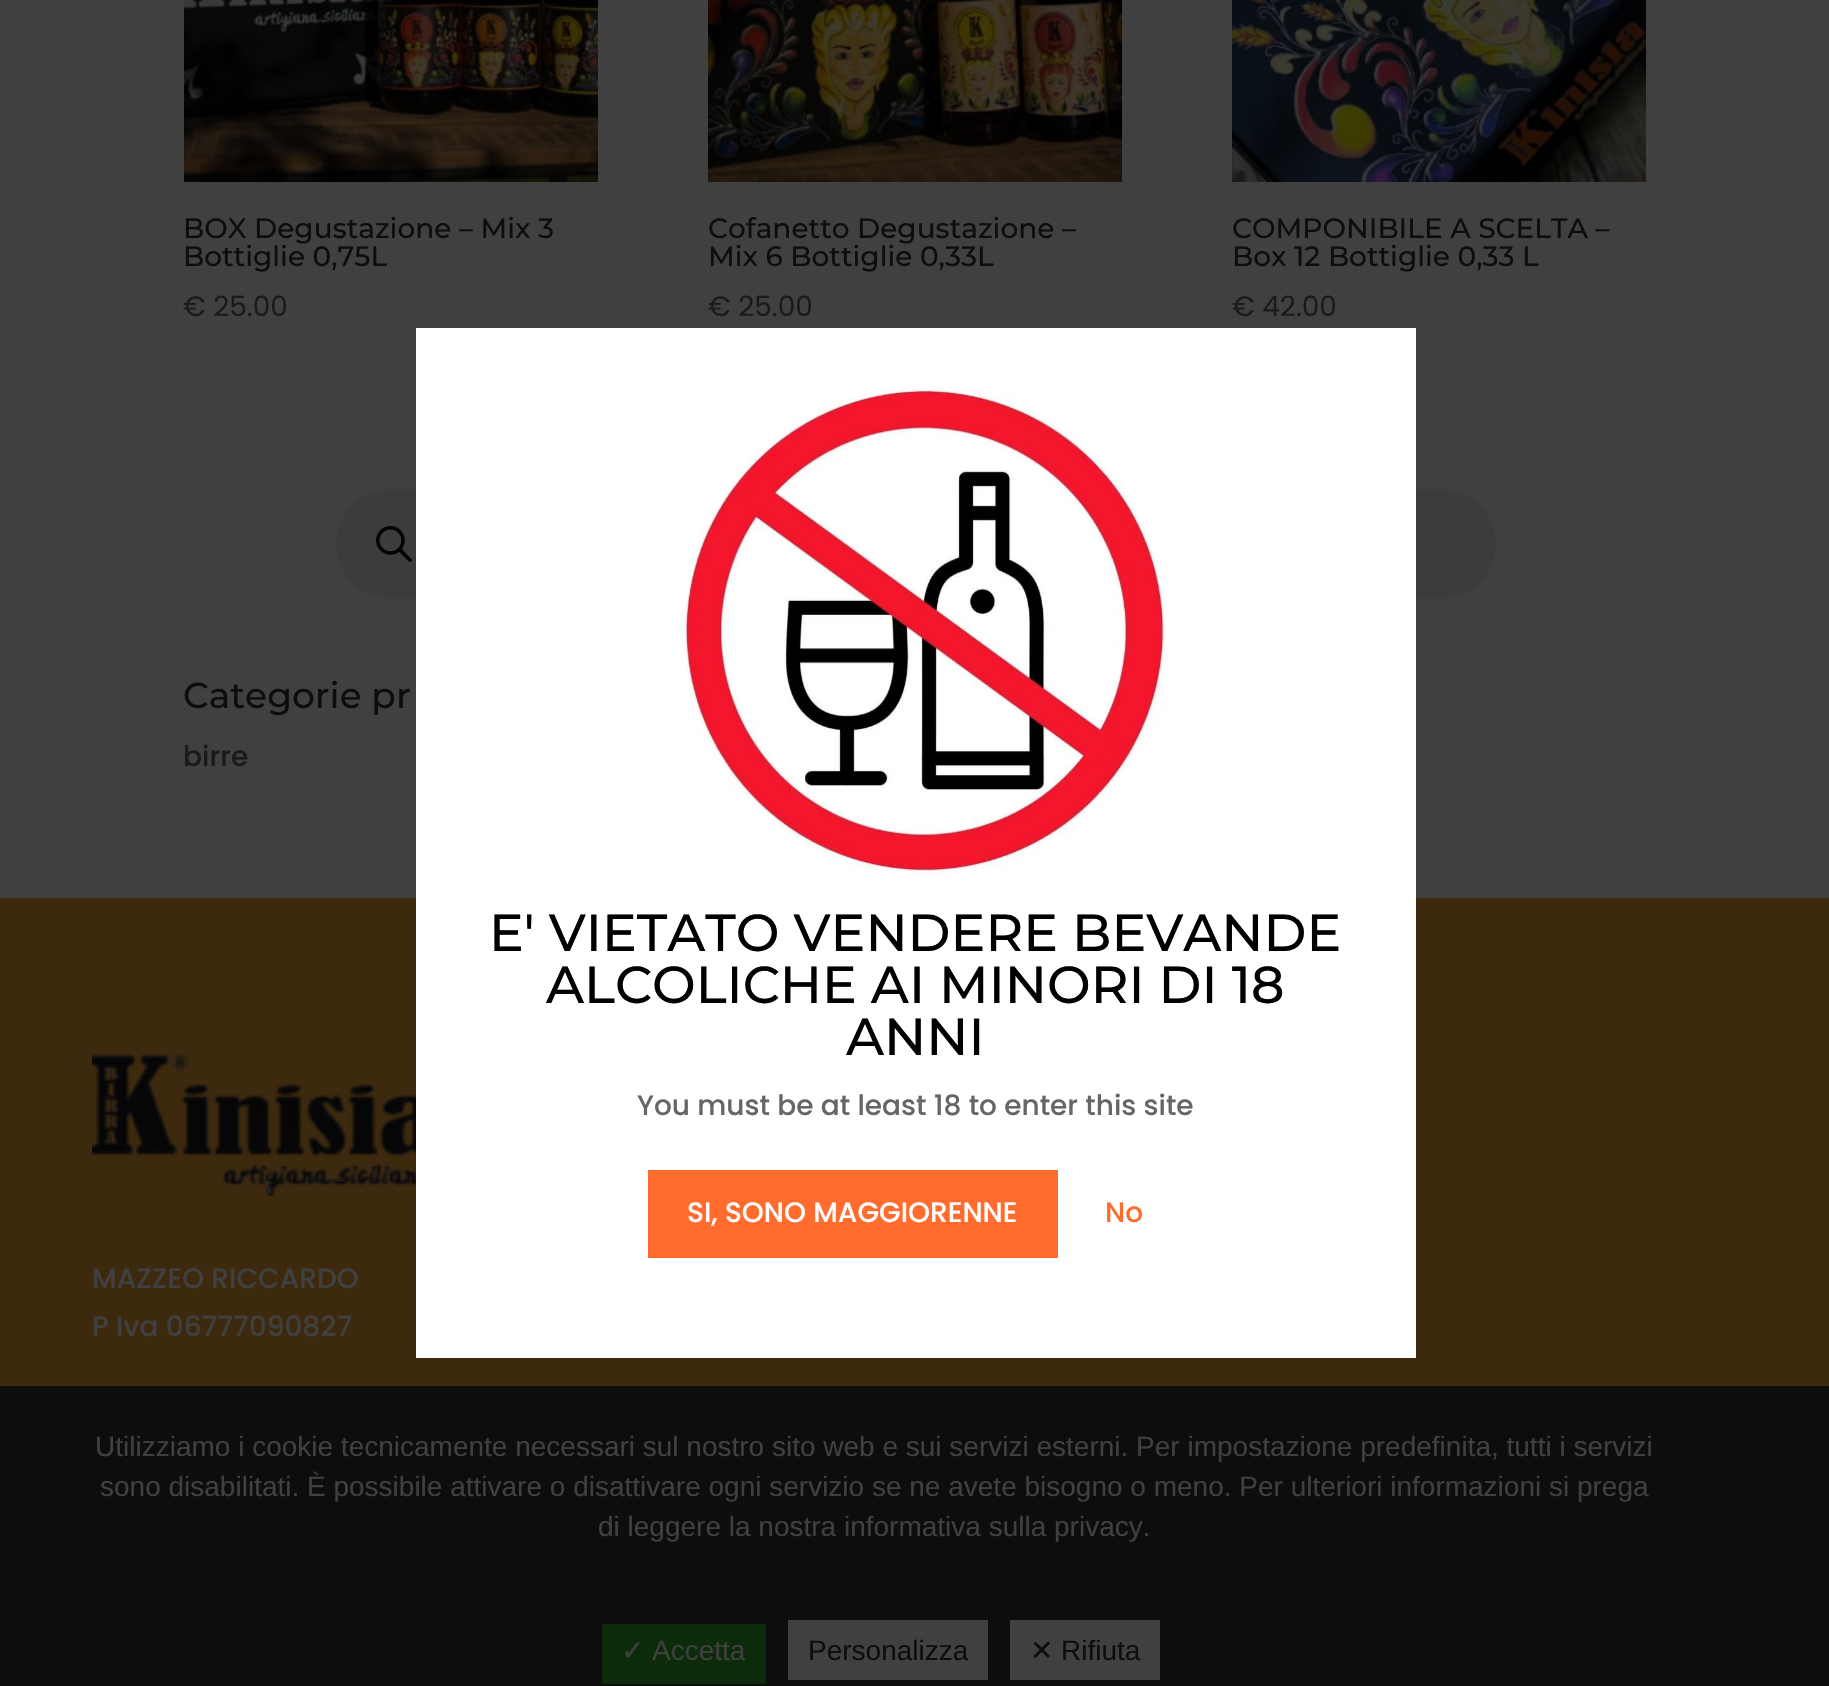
#include "include/core/SkBlurTypes.h"
#include "include/core/SkCanvas.h"
#include "include/core/SkData.h"
#include "include/core/SkFont.h"
#include "include/core/SkFontMgr.h"
#include "include/core/SkImage.h"
#include "include/core/SkMaskFilter.h"
#include "include/core/SkPaint.h"
#include "include/core/SkPathBuilder.h"
#include "include/core/SkTextBlob.h"
#include "include/effects/SkDashPathEffect.h"
#include "include/effects/SkGradientShader.h"
#include "include/utils/SkParsePath.h"

extern sk_sp<SkFontMgr> fontMgr;

void draw(SkCanvas* canvas) {
  SkPaint p;
  p.setAntiAlias(true);
  canvas->clear(SkColorSetRGB(64, 64, 64));
  canvas->drawImageRect(SkImages::DeferredFromEncodedData(SkData::MakeFromFileName("images/1.png")), SkRect::MakeLTRB(184, 0, 598, 182), SkSamplingOptions());
  canvas->drawImageRect(SkImages::DeferredFromEncodedData(SkData::MakeFromFileName("images/2.png")), SkRect::MakeLTRB(708, 0, 1122, 182), SkSamplingOptions());
  canvas->drawImageRect(SkImages::DeferredFromEncodedData(SkData::MakeFromFileName("images/3.png")), SkRect::MakeLTRB(1232, 0, 1646, 182), SkSamplingOptions());
  p.setColor(SkColorSetRGB(60, 60, 60));
  canvas->drawRoundRect(SkRect::MakeLTRB(336, 490, 1496, 598), 54, 54, p);
  canvas->drawImageRect(SkImages::DeferredFromEncodedData(SkData::MakeFromFileName("images/4.png")), SkRect::MakeLTRB(376, 526, 412, 562), SkSamplingOptions());
  p.setColor(SkColorSetRGB(61, 41, 13));
  canvas->drawRect(SkRect::MakeLTRB(0, 898, 1829, 1386), p);
  canvas->drawImageRect(SkImages::DeferredFromEncodedData(SkData::MakeFromFileName("images/5.png")), SkRect::MakeLTRB(92, 1052, 416, 1196), SkSamplingOptions());
  p.setColor(SK_ColorWHITE);
  canvas->drawRect(SkRect::MakeLTRB(416, 328, 1416, 1358), p);
  canvas->drawImageRect(SkImages::DeferredFromEncodedData(SkData::MakeFromFileName("images/6.png")), SkRect::MakeLTRB(678, 388, 1166, 878), SkSamplingOptions());
  p.setColor(SkColorSetRGB(255, 108, 45));
  canvas->drawRect(SkRect::MakeLTRB(648, 1170, 1058, 1258), p);
  p.setColor(SkColorSetRGB(13, 13, 13));
  canvas->drawRect(SkRect::MakeLTRB(0, 1386, 1829, 1686), p);
  p.setColor(SkColorSetRGB(11, 43, 10));
  canvas->drawRect(SkRect::MakeLTRB(602, 1624, 766, 1684), p);
  p.setColor(SkColorSetRGB(64, 64, 64));
  canvas->drawRect(SkRect::MakeLTRB(788, 1620, 988, 1680), p);
  canvas->drawRect(SkRect::MakeLTRB(1010, 1620, 1160, 1680), p);
  SkFont font1(fontMgr->matchFamilyStyle("Montserrat", SkFontStyle(100, SkFontStyle::kNormal_Width, SkFontStyle::kUpright_Slant)), 28);
  font1.setSubpixel(true);
  p.setColor(SkColorSetRGB(13, 13, 13));
  canvas->drawString("BOX Degustazione – Mix 3", 183, 238, font1, p);
  canvas->drawString("Bottiglie 0,75L", 183, 266, font1, p);
  SkFont font2(fontMgr->matchFamilyStyle("Poppins", SkFontStyle::Normal()), 28);
  font2.setSubpixel(true);
  p.setColor(SkColorSetRGB(26, 26, 26));
  canvas->drawString("€ 25.00", 183, 316, font2, p);
  p.setColor(SkColorSetRGB(13, 13, 13));
  canvas->drawString("Cofanetto Degustazione –", 708, 238, font1, p);
  canvas->drawString("Mix 6 Bottiglie 0,33L", 708, 266, font1, p);
  p.setColor(SkColorSetRGB(26, 26, 26));
  canvas->drawString("€ 25.00", 708, 316, font2, p);
  p.setColor(SkColorSetRGB(13, 13, 13));
  canvas->drawString("COMPONIBILE A SCELTA –", 1232, 238, font1, p);
  canvas->drawString("Box 12 Bottiglie 0,33 L", 1232, 266, font1, p);
  p.setColor(SkColorSetRGB(26, 26, 26));
  canvas->drawString("€ 42.00", 1232, 316, font2, p);
  SkFont font3(fontMgr->matchFamilyStyle("Montserrat", SkFontStyle(100, SkFontStyle::kNormal_Width, SkFontStyle::kUpright_Slant)), 36);
  font3.setSubpixel(true);
  p.setColor(SkColorSetRGB(13, 13, 13));
  canvas->drawString("Categorie pr", 183, 708, font3, p);
  SkFont font4(fontMgr->matchFamilyStyle("Poppins", SkFontStyle(500, SkFontStyle::kNormal_Width, SkFontStyle::kUpright_Slant)), 28);
  font4.setSubpixel(true);
  p.setColor(SkColorSetRGB(26, 26, 26));
  canvas->drawString("birre", 183, 766, font4, p);
  p.setColor(SkColorSetRGB(64, 64, 64));
  canvas->drawString("MAZZEO RICCARDO", 92, 1288, font4, p);
  canvas->drawString("P Iva 06777090827", 92, 1336, font4, p);
  SkFont font5(fontMgr->matchFamilyStyle("Montserrat", SkFontStyle(100, SkFontStyle::kNormal_Width, SkFontStyle::kUpright_Slant)), 52);
  font5.setSubpixel(true);
  p.setColor(SK_ColorBLACK);
  canvas->drawString("E' VIETATO VENDERE BEVANDE", 489, 951, font5, p);
  canvas->drawString("ALCOLICHE AI MINORI DI 18", 546, 1003, font5, p);
  canvas->drawString("ANNI", 846, 1055, font5, p);
  p.setColor(SkColorSetRGB(102, 102, 102));
  canvas->drawString("You must be at least 18 to enter this site", 637, 1115, font4, p);
  p.setColor(SK_ColorWHITE);
  canvas->drawString("SI, SONO MAGGIORENNE", 687, 1222, font4, p);
  p.setColor(SkColorSetRGB(255, 108, 45));
  canvas->drawString("No", 1105, 1222, font4, p);
  SkFont font6(fontMgr->matchFamilyStyle("Liberation Sans", SkFontStyle::Normal()), 28);
  font6.setSubpixel(true);
  p.setColor(SkColorSetRGB(64, 64, 64));
  canvas->drawString("Utilizziamo i cookie tecnicamente necessari sul nostro sito web e sui servizi esterni. Per impostazione predefinita, tutti i servizi", 95, 1456, font6, p);
  canvas->drawString("sono disabilitati. È possibile attivare o disattivare ogni servizio se ne avete bisogno o meno. Per ulteriori informazioni si prega", 100, 1496, font6, p);
  canvas->drawString("di leggere la nostra informativa sulla privacy.", 598, 1536, font6, p);
  SkFont font7(fontMgr->matchFamilyStyle("DejaVu Sans", SkFontStyle::Normal()), 28);
  font7.setSubpixel(true);
  canvas->drawString("✓", 621, 1660, font7, p);
  canvas->drawString("Accetta", 652, 1660, font6, p);
  p.setColor(SkColorSetRGB(13, 13, 13));
  canvas->drawString("Personalizza", 808, 1660, font6, p);
  canvas->drawString("✕", 1030, 1660, font7, p);
  canvas->drawString("Rifiuta", 1061, 1660, font6, p);
}
